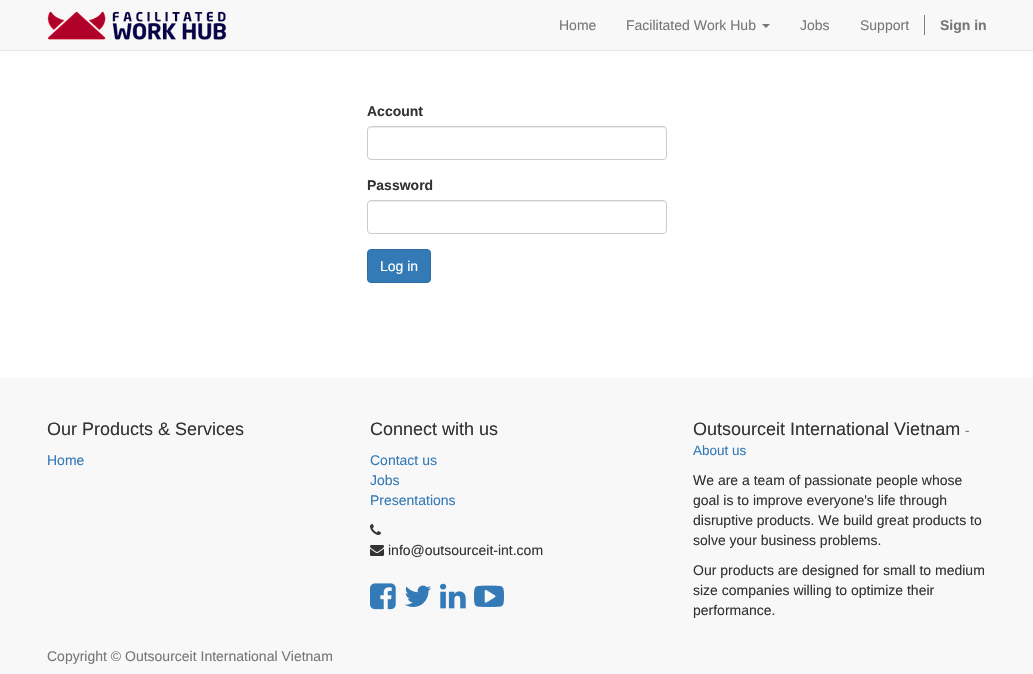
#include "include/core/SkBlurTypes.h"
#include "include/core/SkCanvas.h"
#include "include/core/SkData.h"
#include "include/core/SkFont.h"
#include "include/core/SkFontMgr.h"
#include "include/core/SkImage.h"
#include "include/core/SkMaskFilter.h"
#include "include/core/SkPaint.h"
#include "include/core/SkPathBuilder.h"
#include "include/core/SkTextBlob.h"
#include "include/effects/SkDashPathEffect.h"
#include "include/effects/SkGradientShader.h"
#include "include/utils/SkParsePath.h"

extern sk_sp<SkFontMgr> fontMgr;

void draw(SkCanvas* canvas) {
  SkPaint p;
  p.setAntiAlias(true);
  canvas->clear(SK_ColorWHITE);
  p.setColor(SkColorSetRGB(248, 248, 248));
  canvas->drawRect(SkRect::MakeLTRB(0, 0, 1033, 50), p);
  p.setColor(SkColorSetRGB(231, 231, 231));
  canvas->drawRect(SkRect::MakeLTRB(0, 50, 1033, 51), p);
  canvas->drawImageRect(SkImages::DeferredFromEncodedData(SkData::MakeFromFileName("images/1.png")), SkRect::MakeLTRB(47, 11, 227, 40), SkSamplingOptions());
  p.setColor(SkColorSetRGB(119, 119, 119));
  canvas->drawPath(SkPathBuilder().moveTo(762, 24).lineTo(770, 24).lineTo(766, 28).close().detach(), p);
  p.setColor(SkColorSetRGB(128, 128, 128));
  canvas->drawRect(SkRect::MakeLTRB(924, 15, 925, 35), p);
  p.setColor(SkColorSetRGB(236, 236, 236));
  canvas->drawPath(SkPathBuilder().moveTo(371, 128).lineTo(663, 128).cubicTo(665, 128, 666, 129, 666, 131).lineTo(665, 128).lineTo(664, 127).lineTo(371, 127).cubicTo(369, 127, 368, 129, 368, 131).cubicTo(368, 129, 369, 128, 371, 128).close().detach(), p);
  p.setStyle(SkPaint::kStroke_Style);
  p.setStrokeWidth(1);
  p.setColor(SkColorSetRGB(204, 204, 204));
  canvas->drawRoundRect(SkRect::MakeLTRB(367.5f, 126.5f, 666.5f, 159.5f), 3.5f, 3.5f, p);
  p.setStyle(SkPaint::kFill_Style);
  p.setColor(SkColorSetRGB(236, 236, 236));
  canvas->drawPath(SkPathBuilder().moveTo(371, 202).lineTo(663, 202).cubicTo(665, 202, 666, 203, 666, 205).lineTo(665, 202).lineTo(664, 201).lineTo(371, 201).cubicTo(369, 201, 368, 203, 368, 205).cubicTo(368, 203, 369, 202, 371, 202).close().detach(), p);
  p.setStyle(SkPaint::kStroke_Style);
  p.setColor(SkColorSetRGB(204, 204, 204));
  canvas->drawRoundRect(SkRect::MakeLTRB(367.5f, 200.5f, 666.5f, 233.5f), 3.5f, 3.5f, p);
  p.setStyle(SkPaint::kFill_Style);
  p.setColor(SkColorSetRGB(51, 122, 183));
  canvas->drawRoundRect(SkRect::MakeLTRB(367.5f, 249.5f, 430.5f, 282.5f), 3.5f, 3.5f, p);
  p.setStyle(SkPaint::kStroke_Style);
  p.setColor(SkColorSetRGB(46, 109, 164));
  canvas->drawRoundRect(SkRect::MakeLTRB(367.5f, 249.5f, 430.5f, 282.5f), 3.5f, 3.5f, p);
  p.setStyle(SkPaint::kFill_Style);
  p.setColor(SkColorSetRGB(248, 248, 248));
  canvas->drawRect(SkRect::MakeLTRB(0, 378, 1033, 674), p);
  canvas->drawImageRect(SkImages::DeferredFromEncodedData(SkData::MakeFromFileName("images/2.png")), SkRect::MakeLTRB(370, 524, 381, 535), SkSamplingOptions());
  canvas->drawImageRect(SkImages::DeferredFromEncodedData(SkData::MakeFromFileName("images/3.png")), SkRect::MakeLTRB(370, 545, 384, 556), SkSamplingOptions());
  canvas->drawImageRect(SkImages::DeferredFromEncodedData(SkData::MakeFromFileName("images/4.png")), SkRect::MakeLTRB(370, 583, 396, 610), SkSamplingOptions());
  canvas->drawImageRect(SkImages::DeferredFromEncodedData(SkData::MakeFromFileName("images/5.png")), SkRect::MakeLTRB(405, 585, 431, 607), SkSamplingOptions());
  canvas->drawImageRect(SkImages::DeferredFromEncodedData(SkData::MakeFromFileName("images/6.png")), SkRect::MakeLTRB(440, 583, 466, 609), SkSamplingOptions());
  canvas->drawImageRect(SkImages::DeferredFromEncodedData(SkData::MakeFromFileName("images/7.png")), SkRect::MakeLTRB(474, 585, 504, 607), SkSamplingOptions());
  SkFont font1(fontMgr->matchFamilyStyle("Liberation Sans", SkFontStyle::Normal()), 14);
  font1.setSubpixel(true);
  p.setColor(SkColorSetRGB(119, 119, 119));
  canvas->drawString("Home", 559, 30, font1, p);
  canvas->drawString("Facilitated Work Hub", 626, 30, font1, p);
  canvas->drawString("Jobs", 800, 30, font1, p);
  canvas->drawString("Support", 860, 30, font1, p);
  SkFont font2(fontMgr->matchFamilyStyle("Liberation Sans", SkFontStyle::Bold()), 14);
  font2.setSubpixel(true);
  canvas->drawString("Sign in", 940, 30, font2, p);
  p.setColor(SkColorSetRGB(51, 51, 51));
  canvas->drawString("Account", 367, 116, font2, p);
  canvas->drawString("Password", 367, 190, font2, p);
  p.setColor(SK_ColorWHITE);
  canvas->drawString("Log in", 380, 271, font1, p);
  SkFont font3(fontMgr->matchFamilyStyle("Liberation Sans", SkFontStyle::Normal()), 18);
  font3.setSubpixel(true);
  p.setColor(SkColorSetRGB(51, 51, 51));
  canvas->drawString("Our Products & Services", 47, 435, font3, p);
  p.setColor(SkColorSetRGB(51, 122, 183));
  canvas->drawString("Home", 47, 465, font1, p);
  p.setColor(SkColorSetRGB(51, 51, 51));
  canvas->drawString("Connect with us", 370, 435, font3, p);
  p.setColor(SkColorSetRGB(51, 122, 183));
  canvas->drawString("Contact us", 370, 465, font1, p);
  canvas->drawString("Jobs", 370, 485, font1, p);
  canvas->drawString("Presentations", 370, 505, font1, p);
  p.setColor(SkColorSetRGB(51, 51, 51));
  canvas->drawString("info@outsourceit-int.com", 388, 555, font1, p);
  canvas->drawString("Outsourceit International Vietnam", 693, 435, font3, p);
  SkFont font4(fontMgr->matchFamilyStyle("Liberation Sans", SkFontStyle::Normal()), 13.5f);
  font4.setSubpixel(true);
  p.setColor(SkColorSetRGB(119, 119, 119));
  canvas->drawString("-", 965, 435, font4, p);
  p.setColor(SkColorSetRGB(51, 122, 183));
  canvas->drawString("About us", 693, 455, font4, p);
  p.setColor(SkColorSetRGB(51, 51, 51));
  canvas->drawString("We are a team of passionate people whose", 693, 485, font1, p);
  canvas->drawString("goal is to improve everyone's life through", 693, 505, font1, p);
  canvas->drawString("disruptive products. We build great products to", 693, 525, font1, p);
  canvas->drawString("solve your business problems.", 693, 545, font1, p);
  canvas->drawString("Our products are designed for small to medium", 693, 575, font1, p);
  canvas->drawString("size companies willing to optimize their", 693, 595, font1, p);
  canvas->drawString("performance.", 693, 615, font1, p);
  p.setColor(SkColorSetRGB(119, 119, 119));
  canvas->drawString("Copyright © Outsourceit International Vietnam", 47, 661, font1, p);
}
